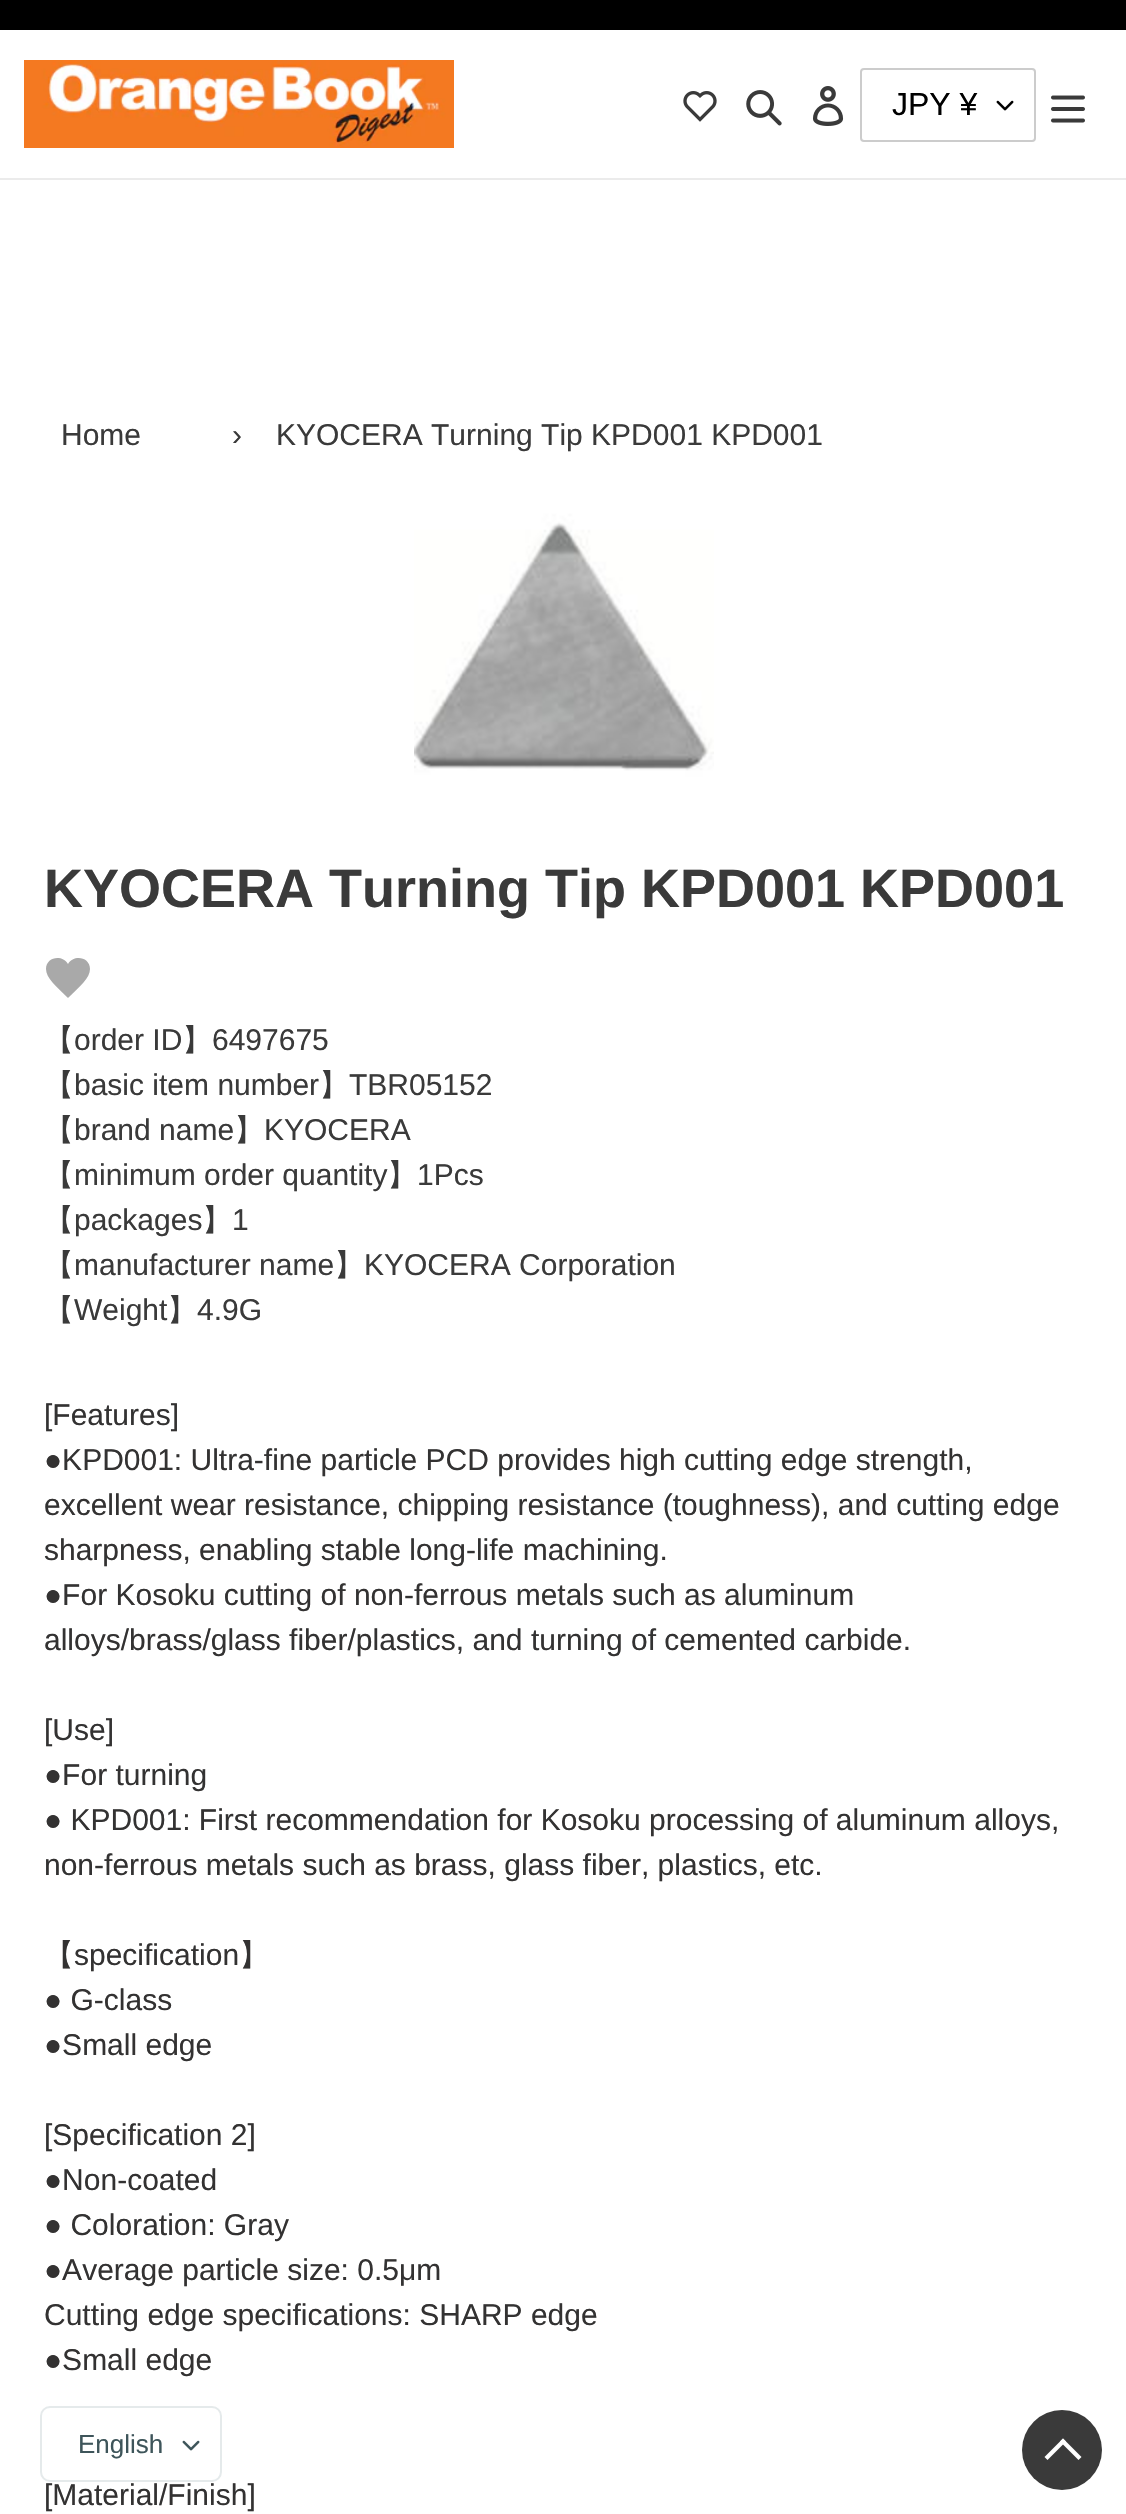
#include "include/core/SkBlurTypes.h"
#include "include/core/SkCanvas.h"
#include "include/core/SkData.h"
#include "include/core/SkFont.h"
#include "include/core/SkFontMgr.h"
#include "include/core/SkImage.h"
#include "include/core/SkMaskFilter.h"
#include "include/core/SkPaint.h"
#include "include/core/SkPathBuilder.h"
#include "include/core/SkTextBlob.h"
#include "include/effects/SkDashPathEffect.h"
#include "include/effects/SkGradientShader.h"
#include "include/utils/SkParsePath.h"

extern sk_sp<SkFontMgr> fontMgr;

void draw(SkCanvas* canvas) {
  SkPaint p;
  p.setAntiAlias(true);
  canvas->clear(SK_ColorWHITE);
  p.setColor(SK_ColorBLACK);
  canvas->drawRect(SkRect::MakeLTRB(0, 0, 1126, 30), p);
  p.setColor(SkColorSetRGB(235, 235, 235));
  canvas->drawRect(SkRect::MakeLTRB(0, 178, 1126, 180), p);
  canvas->drawImageRect(SkImages::DeferredFromEncodedData(SkData::MakeFromFileName("images/1.png")), SkRect::MakeLTRB(24, 60, 454, 148), SkSamplingOptions());
  canvas->drawImageRect(SkImages::DeferredFromEncodedData(SkData::MakeFromFileName("images/2.png")), SkRect::MakeLTRB(683, 91, 717, 122), SkSamplingOptions());
  canvas->drawImageRect(SkImages::DeferredFromEncodedData(SkData::MakeFromFileName("images/3.png")), SkRect::MakeLTRB(746, 90, 782, 126), SkSamplingOptions());
  canvas->drawImageRect(SkImages::DeferredFromEncodedData(SkData::MakeFromFileName("images/4.png")), SkRect::MakeLTRB(813, 86, 844, 126), SkSamplingOptions());
  canvas->drawImageRect(SkImages::DeferredFromEncodedData(SkData::MakeFromFileName("images/5.png")), SkRect::MakeLTRB(996, 100, 1014, 111), SkSamplingOptions());
  p.setStyle(SkPaint::kStroke_Style);
  p.setStrokeWidth(2);
  p.setColor(SkColorSetRGB(204, 204, 204));
  canvas->drawRoundRect(SkRect::MakeLTRB(861, 69, 1035, 141), 3, 3, p);
  canvas->drawImageRect(SkImages::DeferredFromEncodedData(SkData::MakeFromFileName("images/6.png")), SkRect::MakeLTRB(1051, 95, 1085, 123), SkSamplingOptions());
  canvas->drawImageRect(SkImages::DeferredFromEncodedData(SkData::MakeFromFileName("images/7.png")), SkRect::MakeLTRB(414, 498, 714, 798), SkSamplingOptions());
  p.setStyle(SkPaint::kFill_Style);
  p.setColor(SkColorSetRGB(169, 169, 169));
  canvas->drawPath(SkPathBuilder().moveTo(68, 964).cubicTo(74, 954, 90, 957, 90, 969).cubicTo(90, 978, 80, 986, 68, 998).cubicTo(56, 986, 46, 978, 46, 969).cubicTo(46, 957, 62, 954, 68, 964).close().detach(), p);
  canvas->drawImageRect(SkImages::DeferredFromEncodedData(SkData::MakeFromFileName("images/8.png")), SkRect::MakeLTRB(182, 2440, 200, 2451), SkSamplingOptions());
  p.setStyle(SkPaint::kStroke_Style);
  p.setColor(SkColorSetRGB(229, 234, 235));
  canvas->drawRoundRect(SkRect::MakeLTRB(41, 2407, 221, 2481), 9, 9, p);
  p.setStyle(SkPaint::kFill_Style);
  p.setColor(SkColorSetRGB(58, 58, 58));
  canvas->drawCircle(1062, 2450, 40, p);
  p.setColor(SK_ColorWHITE);
  canvas->drawPath(SkPathBuilder().moveTo(1047.5f, 2460).lineTo(1044.5f, 2457).lineTo(1063, 2438.5f).lineTo(1066, 2441.5f).close().detach(), p);
  canvas->drawPath(SkPathBuilder().moveTo(1078.5f, 2460).lineTo(1060, 2441.5f).lineTo(1063, 2438.5f).lineTo(1081.5f, 2457).close().detach(), p);
  SkFont font1(fontMgr->matchFamilyStyle("Liberation Sans", SkFontStyle::Normal()), 32);
  font1.setSubpixel(true);
  p.setColor(SK_ColorBLACK);
  canvas->drawString("JPY ¥", 892, 115, font1, p);
  SkFont font2(fontMgr->matchFamilyStyle("Liberation Sans", SkFontStyle::Normal()), 30);
  font2.setSubpixel(true);
  p.setColor(SkColorSetRGB(58, 58, 58));
  canvas->drawString("Home", 61, 445, font2, p);
  canvas->drawString("›", 232, 445, font2, p);
  canvas->drawString("KYOCERA Turning Tip KPD001 KPD001", 276, 445, font2, p);
  SkFont font3(fontMgr->matchFamilyStyle("Liberation Sans", SkFontStyle::Bold()), 54);
  font3.setSubpixel(true);
  canvas->drawString("KYOCERA Turning Tip KPD001 KPD001", 44, 907, font3, p);
  SkFont font4(fontMgr->matchFamilyStyle("WenQuanYi Zen Hei", SkFontStyle(500, SkFontStyle::kNormal_Width, SkFontStyle::kUpright_Slant)), 30);
  font4.setSubpixel(true);
  canvas->drawString("【", 44, 1050, font4, p);
  canvas->drawString("order ID", 74, 1050, font2, p);
  canvas->drawString("】", 182, 1050, font4, p);
  canvas->drawString("6497675", 212, 1050, font2, p);
  canvas->drawString("【", 44, 1095, font4, p);
  canvas->drawString("basic item number", 74, 1095, font2, p);
  canvas->drawString("】", 319, 1095, font4, p);
  canvas->drawString("TBR05152", 349, 1095, font2, p);
  canvas->drawString("【", 44, 1140, font4, p);
  canvas->drawString("brand name", 74, 1140, font2, p);
  canvas->drawString("】", 234, 1140, font4, p);
  canvas->drawString("KYOCERA", 264, 1140, font2, p);
  canvas->drawString("【", 44, 1185, font4, p);
  canvas->drawString("minimum order quantity", 74, 1185, font2, p);
  canvas->drawString("】", 387, 1185, font4, p);
  canvas->drawString("1Pcs", 417, 1185, font2, p);
  canvas->drawString("【", 44, 1230, font4, p);
  canvas->drawString("packages", 74, 1230, font2, p);
  canvas->drawString("】", 202, 1230, font4, p);
  canvas->drawString("1", 232, 1230, font2, p);
  canvas->drawString("【", 44, 1275, font4, p);
  canvas->drawString("manufacturer name", 74, 1275, font2, p);
  canvas->drawString("】", 334, 1275, font4, p);
  canvas->drawString("KYOCERA Corporation", 364, 1275, font2, p);
  canvas->drawString("【", 44, 1320, font4, p);
  canvas->drawString("Weight", 74, 1320, font2, p);
  canvas->drawString("】", 167, 1320, font4, p);
  canvas->drawString("4.9G", 197, 1320, font2, p);
  p.setColor(SkColorSetRGB(51, 50, 50));
  canvas->drawString("[Features]", 44, 1425, font2, p);
  canvas->drawString("●KPD001: Ultra-fine particle PCD provides high cutting edge strength,", 44, 1470, font2, p);
  canvas->drawString("excellent wear resistance, chipping resistance (toughness), and cutting edge", 44, 1515, font2, p);
  canvas->drawString("sharpness, enabling stable long-life machining.", 44, 1560, font2, p);
  canvas->drawString("●For Kosoku cutting of non-ferrous metals such as aluminum", 44, 1605, font2, p);
  canvas->drawString("alloys/brass/glass fiber/plastics, and turning of cemented carbide.", 44, 1650, font2, p);
  canvas->drawString("[Use]", 44, 1740, font2, p);
  canvas->drawString("●For turning", 44, 1785, font2, p);
  canvas->drawString("● KPD001: First recommendation for Kosoku processing of aluminum alloys,", 44, 1830, font2, p);
  canvas->drawString("non-ferrous metals such as brass, glass fiber, plastics, etc.", 44, 1875, font2, p);
  canvas->drawString("【", 44, 1965, font4, p);
  canvas->drawString("specification", 74, 1965, font2, p);
  canvas->drawString("】", 239, 1965, font4, p);
  canvas->drawString("● G-class", 44, 2010, font2, p);
  canvas->drawString("●Small edge", 44, 2055, font2, p);
  canvas->drawString("[Specification 2]", 44, 2145, font2, p);
  canvas->drawString("●Non-coated", 44, 2190, font2, p);
  canvas->drawString("● Coloration: Gray", 44, 2235, font2, p);
  canvas->drawString("●Average particle size: 0.5μm", 44, 2280, font2, p);
  canvas->drawString("Cutting edge specifications: SHARP edge", 44, 2325, font2, p);
  canvas->drawString("●Small edge", 44, 2370, font2, p);
  canvas->drawString("[Material/Finish]", 44, 2505, font2, p);
  SkFont font5(fontMgr->matchFamilyStyle("Liberation Sans", SkFontStyle::Normal()), 26);
  font5.setSubpixel(true);
  p.setColor(SkColorSetRGB(62, 85, 90));
  canvas->drawString("English", 78, 2453, font5, p);
}
